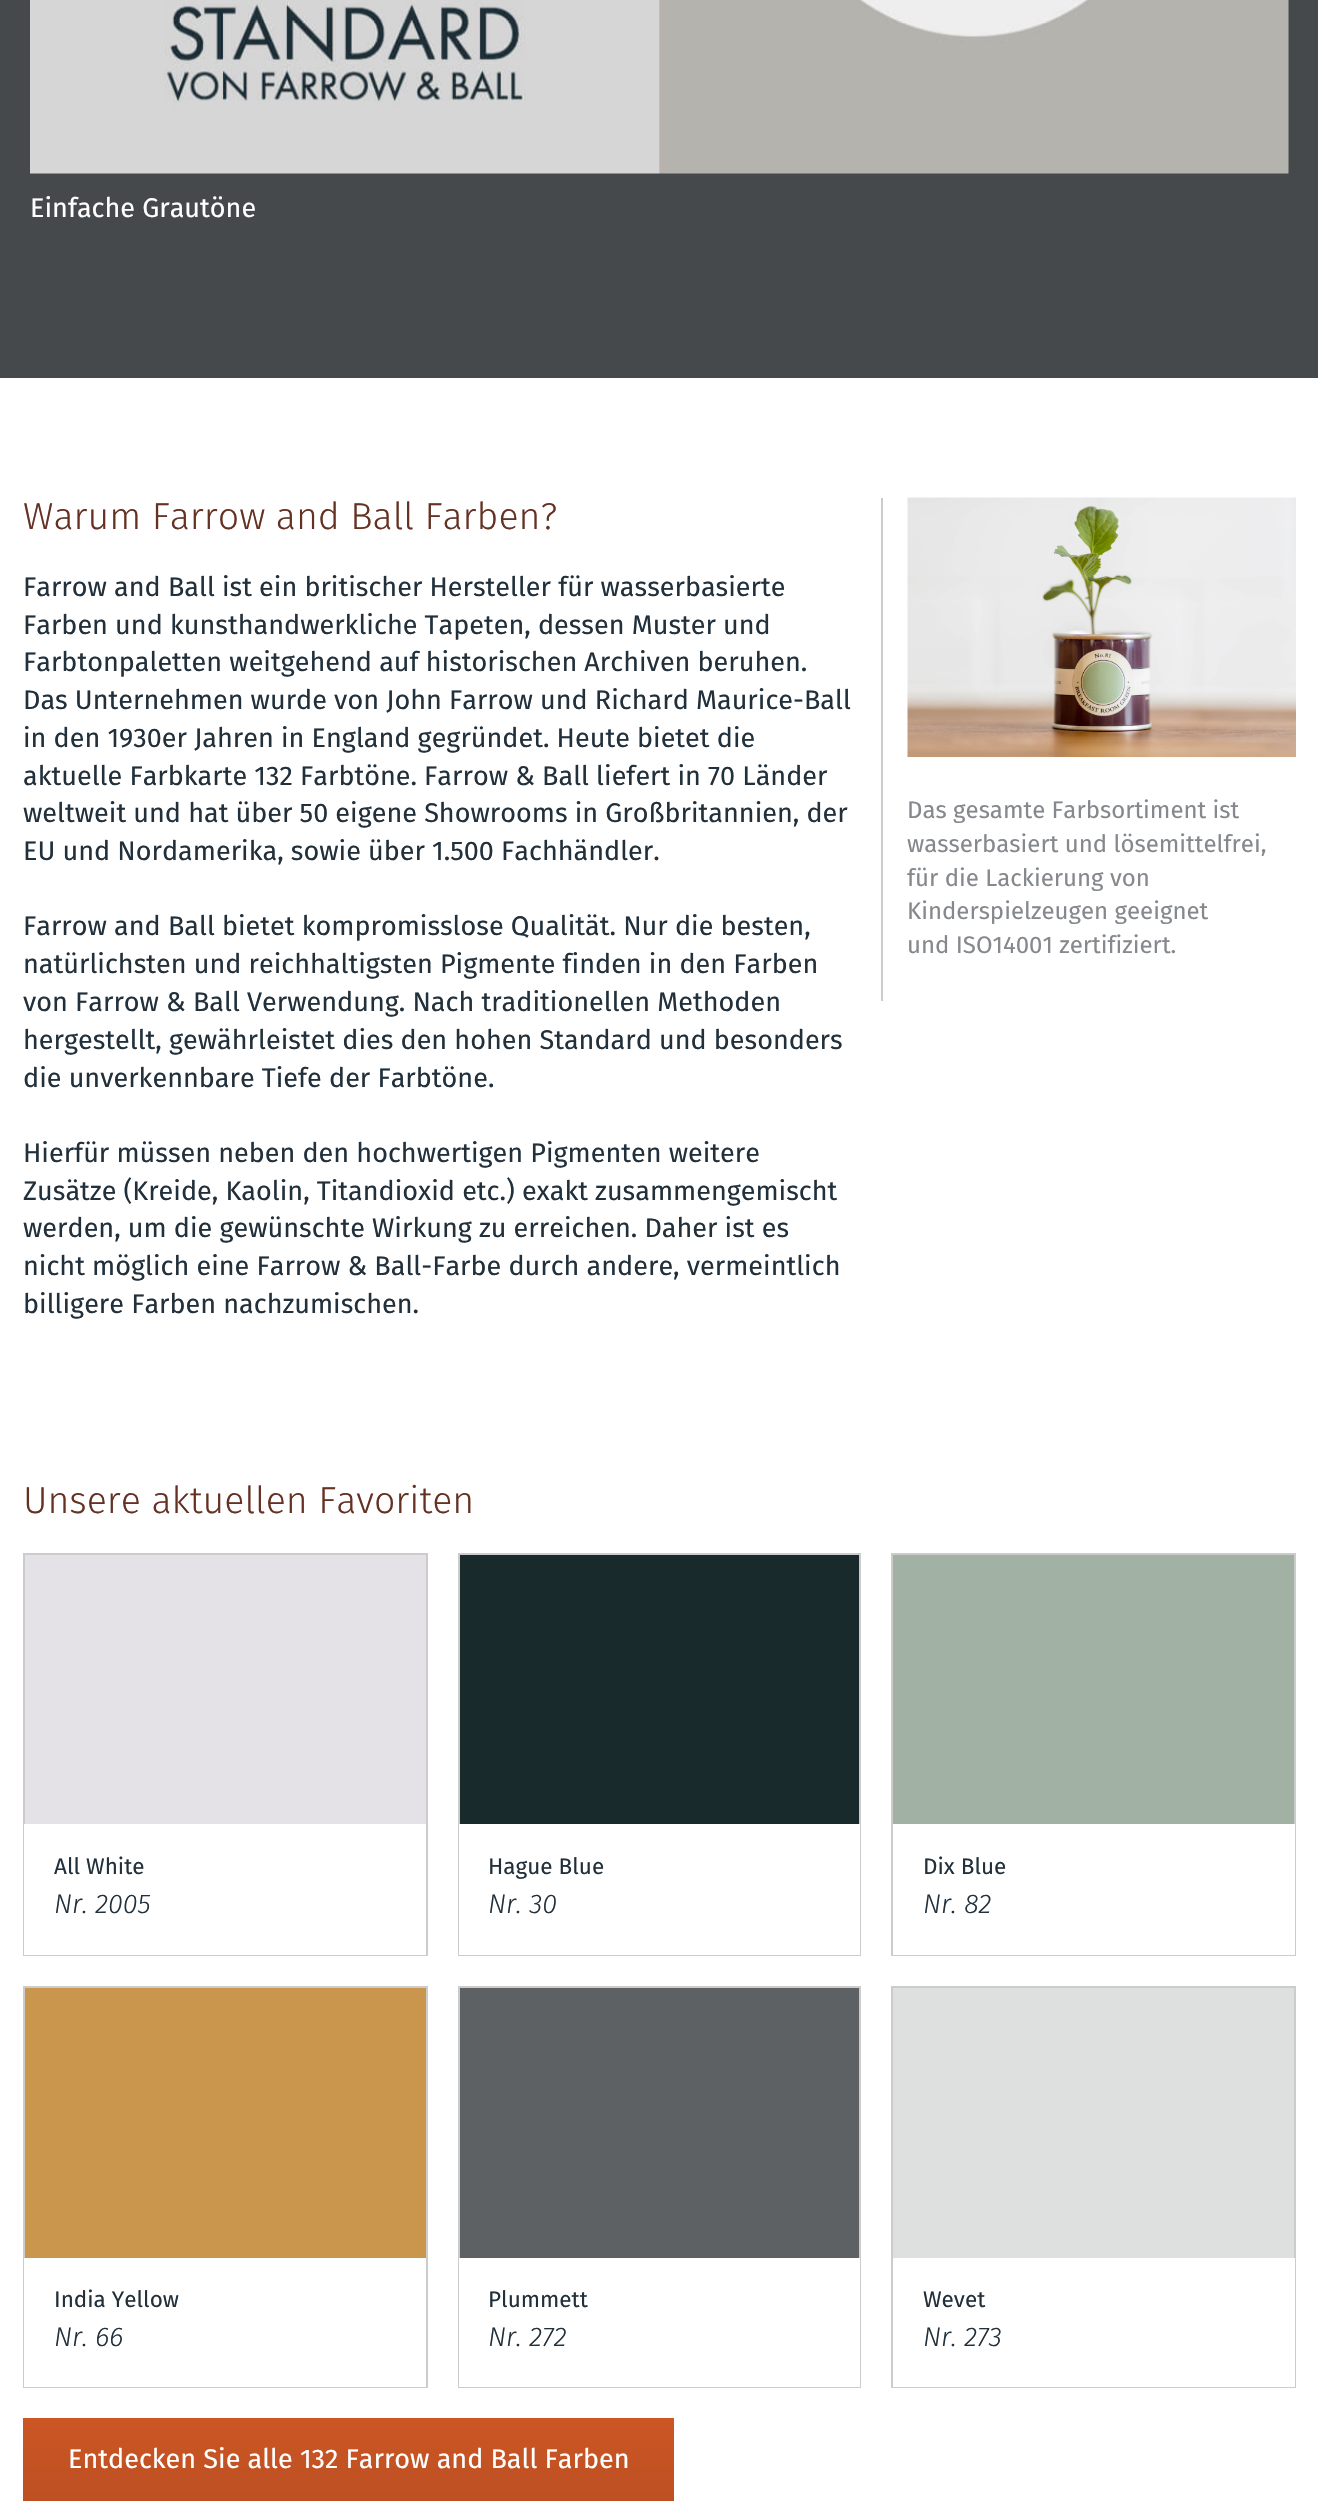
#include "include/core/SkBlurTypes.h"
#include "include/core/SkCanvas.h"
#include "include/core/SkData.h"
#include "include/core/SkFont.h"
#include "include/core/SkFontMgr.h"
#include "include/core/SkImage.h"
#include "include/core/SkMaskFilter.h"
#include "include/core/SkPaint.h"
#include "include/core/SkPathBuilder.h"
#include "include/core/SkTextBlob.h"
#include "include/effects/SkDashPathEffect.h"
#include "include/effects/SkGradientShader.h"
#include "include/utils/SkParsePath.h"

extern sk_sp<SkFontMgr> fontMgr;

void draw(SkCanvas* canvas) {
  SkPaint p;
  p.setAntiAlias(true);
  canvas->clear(SK_ColorWHITE);
  p.setColor(SkColorSetRGB(70, 73, 75));
  canvas->drawRect(SkRect::MakeLTRB(0, 0, 1318, 378), p);
  canvas->drawImageRect(SkImages::DeferredFromEncodedData(SkData::MakeFromFileName("images/1.png")), SkRect::MakeLTRB(30, 0, 1289, 174), SkSamplingOptions());
  p.setColor(SkColorSetRGB(204, 204, 204));
  canvas->drawRect(SkRect::MakeLTRB(881, 498, 883, 1001), p);
  canvas->drawImageRect(SkImages::DeferredFromEncodedData(SkData::MakeFromFileName("images/2.png")), SkRect::MakeLTRB(907, 497, 1296, 757), SkSamplingOptions());
  p.setColor(SkColorSetRGB(229, 226, 231));
  canvas->drawRect(SkRect::MakeLTRB(25, 1555, 426, 1824), p);
  p.setStyle(SkPaint::kStroke_Style);
  p.setStrokeWidth(2);
  p.setColor(SkColorSetRGB(204, 204, 204));
  canvas->drawRect(SkRect::MakeLTRB(24, 1554, 427, 1955), p);
  p.setStyle(SkPaint::kFill_Style);
  p.setColor(SK_ColorWHITE);
  canvas->drawRect(SkRect::MakeLTRB(24, 1824, 426, 1955), p);
  p.setColor(SkColorSetRGB(24, 42, 44));
  canvas->drawRect(SkRect::MakeLTRB(460, 1555, 859, 1824), p);
  p.setStyle(SkPaint::kStroke_Style);
  p.setColor(SkColorSetRGB(204, 204, 204));
  canvas->drawRect(SkRect::MakeLTRB(459, 1554, 860, 1955), p);
  p.setStyle(SkPaint::kFill_Style);
  p.setColor(SK_ColorWHITE);
  canvas->drawRect(SkRect::MakeLTRB(459, 1824, 860, 1955), p);
  p.setColor(SkColorSetRGB(161, 177, 164));
  canvas->drawRect(SkRect::MakeLTRB(893, 1555, 1294, 1824), p);
  p.setStyle(SkPaint::kStroke_Style);
  p.setColor(SkColorSetRGB(204, 204, 204));
  canvas->drawRect(SkRect::MakeLTRB(892, 1554, 1295, 1955), p);
  p.setStyle(SkPaint::kFill_Style);
  p.setColor(SK_ColorWHITE);
  canvas->drawRect(SkRect::MakeLTRB(893, 1824, 1295, 1955), p);
  p.setColor(SkColorSetRGB(202, 150, 77));
  canvas->drawRect(SkRect::MakeLTRB(25, 1988, 426, 2258), p);
  p.setStyle(SkPaint::kStroke_Style);
  p.setColor(SkColorSetRGB(204, 204, 204));
  canvas->drawRect(SkRect::MakeLTRB(24, 1987, 427, 2387), p);
  p.setStyle(SkPaint::kFill_Style);
  p.setColor(SK_ColorWHITE);
  canvas->drawRect(SkRect::MakeLTRB(24, 2258, 426, 2387), p);
  p.setColor(SkColorSetRGB(93, 97, 99));
  canvas->drawRect(SkRect::MakeLTRB(460, 1988, 859, 2258), p);
  p.setStyle(SkPaint::kStroke_Style);
  p.setColor(SkColorSetRGB(204, 204, 204));
  canvas->drawRect(SkRect::MakeLTRB(459, 1987, 860, 2387), p);
  p.setStyle(SkPaint::kFill_Style);
  p.setColor(SK_ColorWHITE);
  canvas->drawRect(SkRect::MakeLTRB(459, 2258, 860, 2387), p);
  p.setColor(SkColorSetRGB(222, 224, 224));
  canvas->drawRect(SkRect::MakeLTRB(893, 1988, 1294, 2258), p);
  p.setStyle(SkPaint::kStroke_Style);
  p.setColor(SkColorSetRGB(204, 204, 204));
  canvas->drawRect(SkRect::MakeLTRB(892, 1987, 1295, 2387), p);
  p.setStyle(SkPaint::kFill_Style);
  p.setColor(SK_ColorWHITE);
  canvas->drawRect(SkRect::MakeLTRB(893, 2258, 1295, 2387), p);
  {
    const SkColor colors[] = {SkColorSetRGB(204, 86, 36), SkColorSetRGB(189, 80, 34)};
    const float stops[] = {0, 1};
    const SkPoint ends[] = {{348, 2418}, {348, 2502}};
    p.setShader(SkGradientShader::MakeLinear(ends, colors, stops, 2, SkTileMode::kClamp));
    p.setAlpha(255);
  }
  canvas->drawRect(SkRect::MakeLTRB(23, 2418, 674, 2501), p);
  SkFont font1(fontMgr->matchFamilyStyle("Fira Sans", SkFontStyle::Normal()), 27);
  font1.setSubpixel(true);
  p.setShader(nullptr);
  p.setColor(SK_ColorWHITE);
  canvas->drawString("Einfache Grautöne", 30, 217, font1, p);
  SkFont font2(fontMgr->matchFamilyStyle("Fira Sans", SkFontStyle(300, SkFontStyle::kNormal_Width, SkFontStyle::kUpright_Slant)), 37.5f);
  font2.setSubpixel(true);
  p.setColor(SkColorSetRGB(100, 49, 35));
  canvas->drawString("Warum Farrow and Ball Farben?", 23, 529, font2, p);
  p.setColor(SkColorSetRGB(33, 48, 59));
  canvas->drawString("Farrow and Ball ist ein britischer Hersteller für wasserbasierte", 23, 596, font1, p);
  canvas->drawString("Farben und kunsthandwerkliche Tapeten, dessen Muster und", 23, 634, font1, p);
  canvas->drawString("Farbtonpaletten weitgehend auf historischen Archiven beruhen.", 23, 671, font1, p);
  canvas->drawString("Das Unternehmen wurde von John Farrow und Richard Maurice-Ball", 23, 709, font1, p);
  canvas->drawString("in den 1930er Jahren in England gegründet. Heute bietet die", 23, 747, font1, p);
  canvas->drawString("aktuelle Farbkarte 132 Farbtöne. Farrow & Ball liefert in 70 Länder", 23, 785, font1, p);
  canvas->drawString("weltweit und hat über 50 eigene Showrooms in Großbritannien, der", 23, 822, font1, p);
  canvas->drawString("EU und Nordamerika, sowie über 1.500 Fachhändler.", 23, 860, font1, p);
  canvas->drawString("Farrow and Ball bietet kompromisslose Qualität. Nur die besten,", 23, 935, font1, p);
  canvas->drawString("natürlichsten und reichhaltigsten Pigmente finden in den Farben", 23, 973, font1, p);
  canvas->drawString("von Farrow & Ball Verwendung. Nach traditionellen Methoden", 23, 1011, font1, p);
  canvas->drawString("hergestellt, gewährleistet dies den hohen Standard und besonders", 23, 1049, font1, p);
  canvas->drawString("die unverkennbare Tiefe der Farbtöne.", 23, 1087, font1, p);
  canvas->drawString("Hierfür müssen neben den hochwertigen Pigmenten weitere", 23, 1162, font1, p);
  canvas->drawString("Zusätze (Kreide, Kaolin, Titandioxid etc.) exakt zusammengemischt", 23, 1200, font1, p);
  canvas->drawString("werden, um die gewünschte Wirkung zu erreichen. Daher ist es", 23, 1237, font1, p);
  canvas->drawString("nicht möglich eine Farrow & Ball-Farbe durch andere, vermeintlich", 23, 1275, font1, p);
  canvas->drawString("billigere Farben nachzumischen.", 23, 1313, font1, p);
  SkFont font3(fontMgr->matchFamilyStyle("Fira Sans", SkFontStyle::Normal()), 24);
  font3.setSubpixel(true);
  p.setColor(SkColorSetRGB(133, 136, 140));
  canvas->drawString("Das gesamte Farbsortiment ist", 907, 818, font3, p);
  canvas->drawString("wasserbasiert und lösemittelfrei,", 907, 852, font3, p);
  canvas->drawString("für die Lackierung von", 907, 886, font3, p);
  canvas->drawString("Kinderspielzeugen geeignet", 907, 919, font3, p);
  canvas->drawString("und ISO14001 zertifiziert.", 907, 953, font3, p);
  p.setColor(SkColorSetRGB(100, 49, 35));
  canvas->drawString("Unsere aktuellen Favoriten", 23, 1513, font2, p);
  SkFont font4(fontMgr->matchFamilyStyle("Fira Sans", SkFontStyle::Normal()), 22.5f);
  font4.setSubpixel(true);
  p.setColor(SkColorSetRGB(33, 48, 59));
  canvas->drawString("All White", 54, 1874, font4, p);
  SkFont font5(fontMgr->matchFamilyStyle("Fira Sans", SkFontStyle(300, SkFontStyle::kNormal_Width, SkFontStyle::kItalic_Slant)), 27);
  font5.setSubpixel(true);
  canvas->drawString("Nr. 2005", 54, 1913, font5, p);
  canvas->drawString("Hague Blue", 488, 1874, font4, p);
  canvas->drawString("Nr. 30", 488, 1913, font5, p);
  canvas->drawString("Dix Blue", 923, 1874, font4, p);
  canvas->drawString("Nr. 82", 923, 1913, font5, p);
  canvas->drawString("India Yellow", 54, 2307, font4, p);
  canvas->drawString("Nr. 66", 54, 2346, font5, p);
  canvas->drawString("Plummett", 488, 2307, font4, p);
  canvas->drawString("Nr. 272", 488, 2346, font5, p);
  canvas->drawString("Wevet", 923, 2307, font4, p);
  canvas->drawString("Nr. 273", 923, 2346, font5, p);
  p.setColor(SK_ColorWHITE);
  canvas->drawString("Entdecken Sie alle 132 Farrow and Ball Farben", 68, 2468, font1, p);
}
